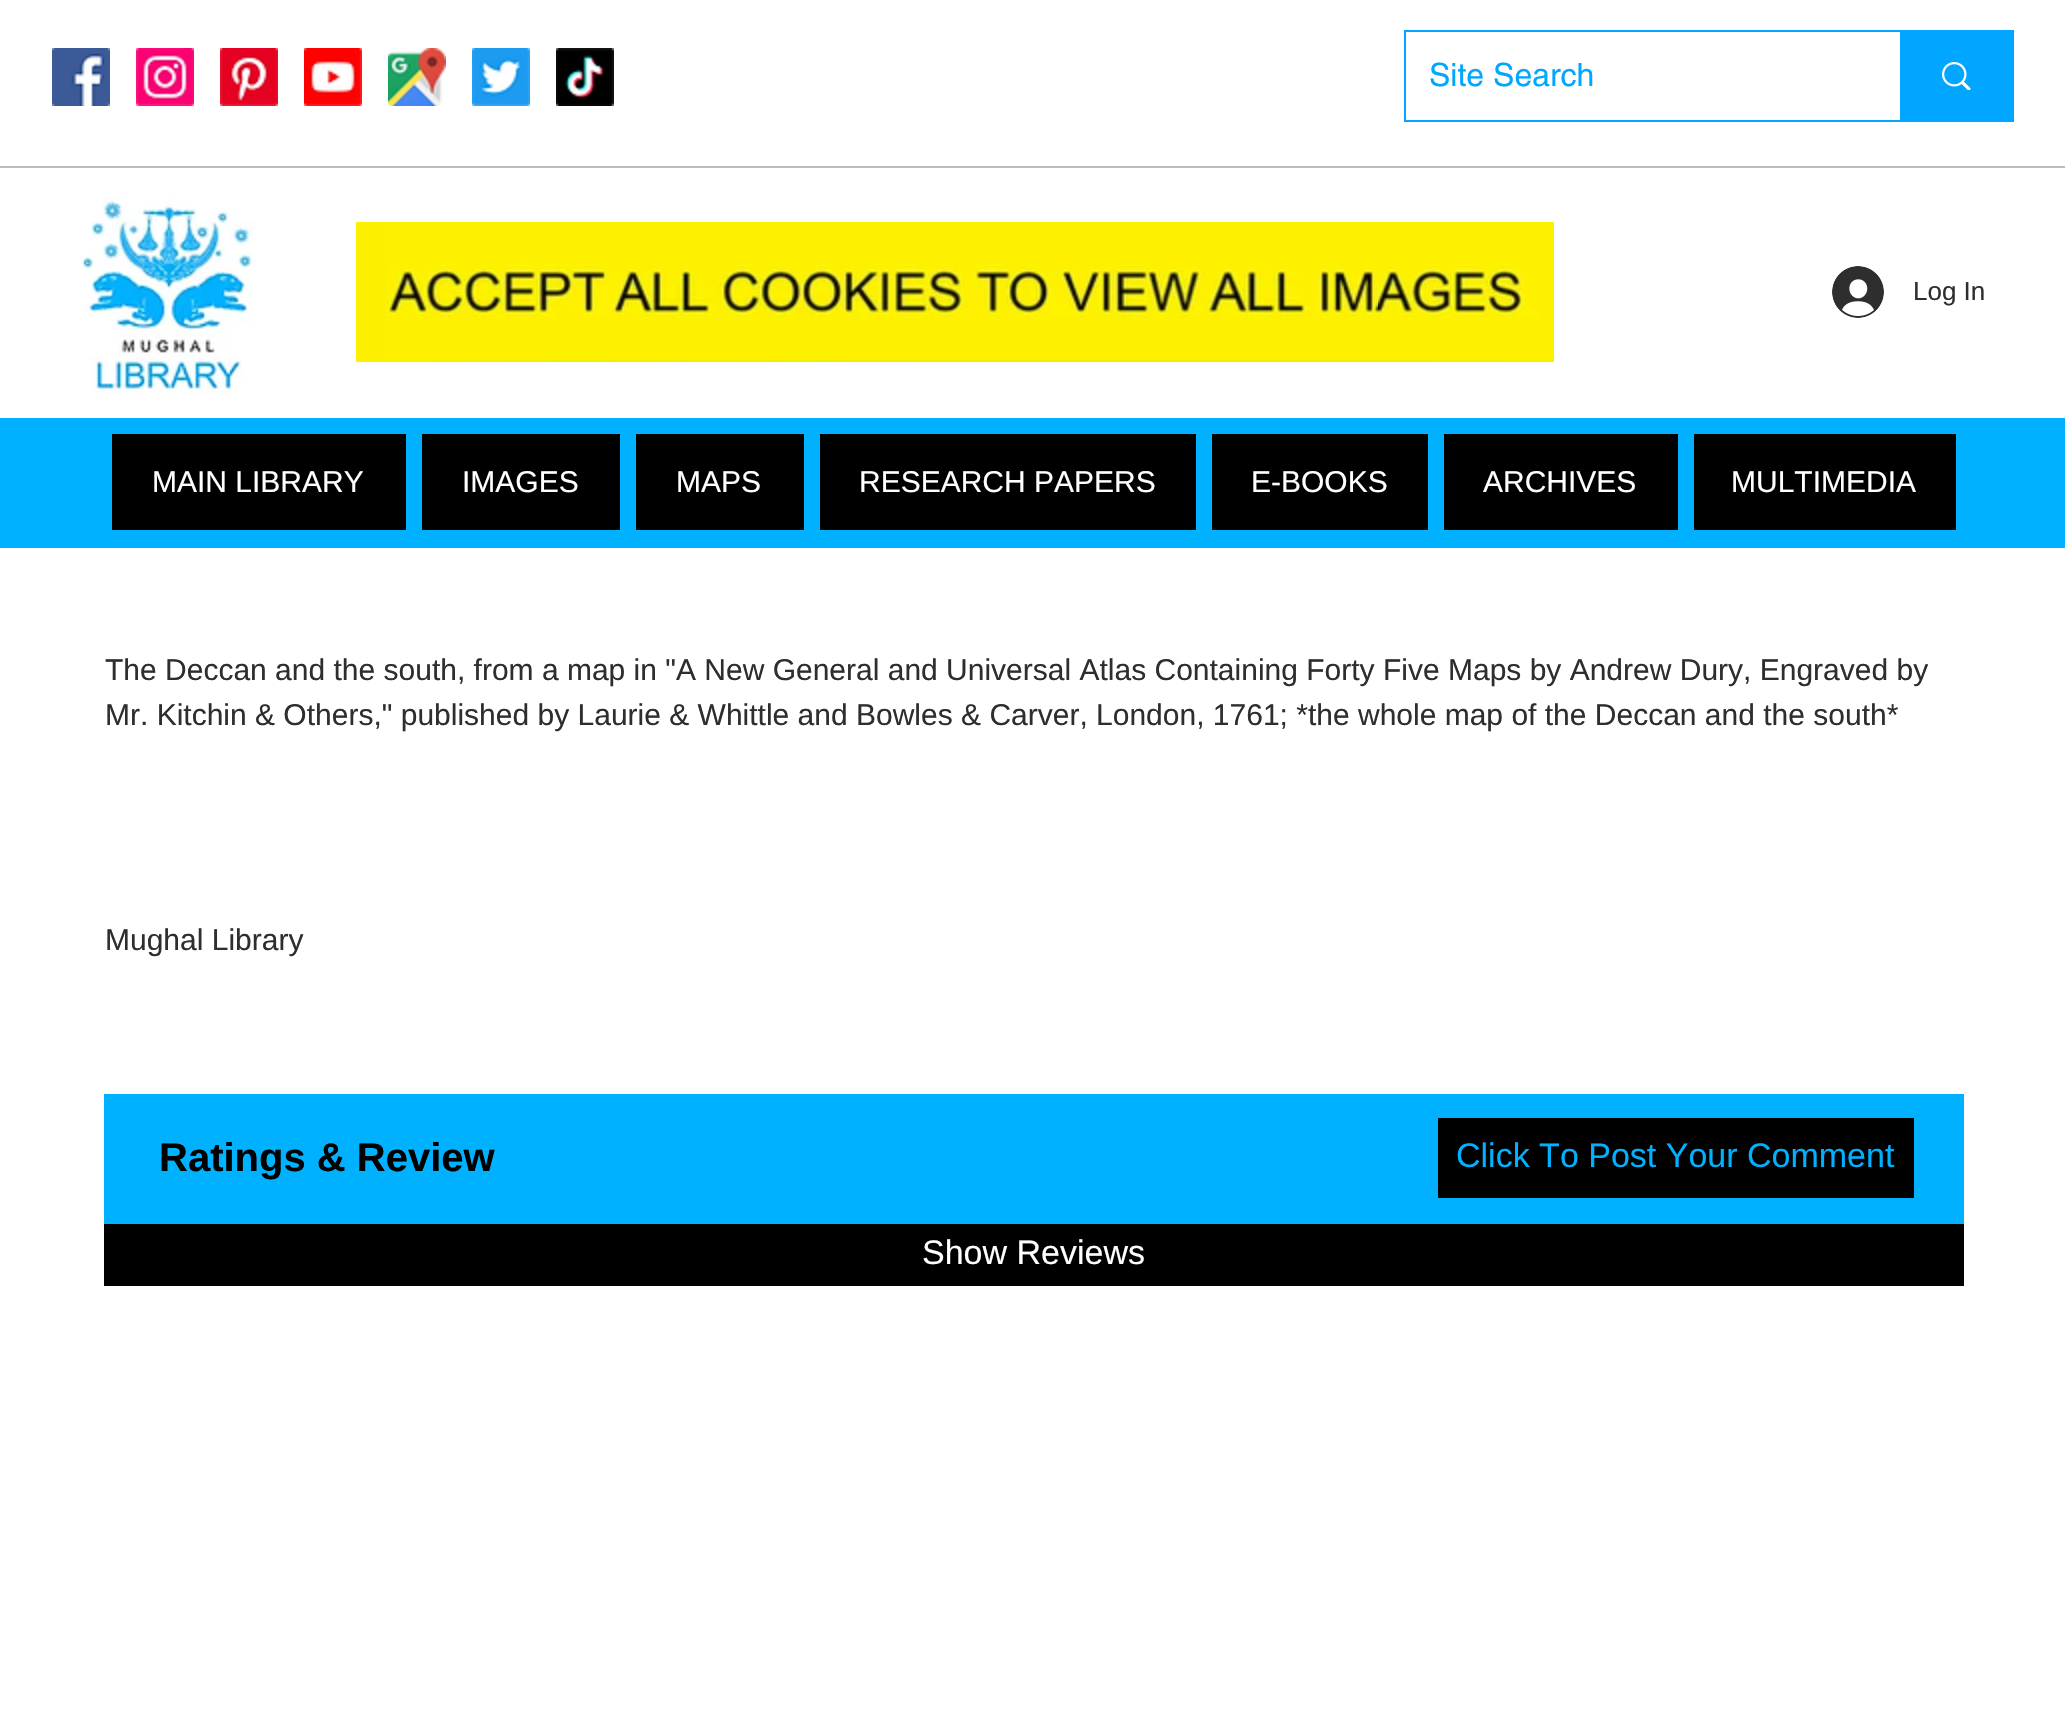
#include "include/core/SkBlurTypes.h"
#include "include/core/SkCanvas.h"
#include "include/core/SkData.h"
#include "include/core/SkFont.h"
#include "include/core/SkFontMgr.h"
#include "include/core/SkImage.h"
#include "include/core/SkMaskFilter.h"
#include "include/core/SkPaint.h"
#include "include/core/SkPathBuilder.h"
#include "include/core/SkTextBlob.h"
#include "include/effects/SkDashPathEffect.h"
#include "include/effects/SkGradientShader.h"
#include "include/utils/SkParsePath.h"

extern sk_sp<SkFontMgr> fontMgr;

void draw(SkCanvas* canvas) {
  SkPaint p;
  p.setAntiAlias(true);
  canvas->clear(SK_ColorWHITE);
  canvas->drawImageRect(SkImages::DeferredFromEncodedData(SkData::MakeFromFileName("images/1.png")), SkRect::MakeLTRB(52, 48, 110, 106), SkSamplingOptions());
  canvas->drawImageRect(SkImages::DeferredFromEncodedData(SkData::MakeFromFileName("images/2.png")), SkRect::MakeLTRB(136, 48, 194, 106), SkSamplingOptions());
  canvas->drawImageRect(SkImages::DeferredFromEncodedData(SkData::MakeFromFileName("images/3.png")), SkRect::MakeLTRB(220, 48, 278, 106), SkSamplingOptions());
  canvas->drawImageRect(SkImages::DeferredFromEncodedData(SkData::MakeFromFileName("images/4.png")), SkRect::MakeLTRB(304, 48, 362, 106), SkSamplingOptions());
  canvas->drawImageRect(SkImages::DeferredFromEncodedData(SkData::MakeFromFileName("images/5.png")), SkRect::MakeLTRB(388, 48, 446, 106), SkSamplingOptions());
  canvas->drawImageRect(SkImages::DeferredFromEncodedData(SkData::MakeFromFileName("images/6.png")), SkRect::MakeLTRB(472, 48, 530, 106), SkSamplingOptions());
  canvas->drawImageRect(SkImages::DeferredFromEncodedData(SkData::MakeFromFileName("images/7.png")), SkRect::MakeLTRB(556, 48, 614, 106), SkSamplingOptions());
  p.setStyle(SkPaint::kStroke_Style);
  p.setStrokeWidth(2);
  p.setColor(SkColorSetRGB(0, 166, 255));
  canvas->drawRect(SkRect::MakeLTRB(1405, 31, 2013, 121), p);
  p.setStyle(SkPaint::kFill_Style);
  canvas->drawRect(SkRect::MakeLTRB(1900, 32, 2012, 120), p);
  canvas->drawImageRect(SkImages::DeferredFromEncodedData(SkData::MakeFromFileName("images/8.png")), SkRect::MakeLTRB(1942, 62, 1971, 90), SkSamplingOptions());
  p.setColor(SkColorSetRGB(189, 189, 188));
  canvas->drawRect(SkRect::MakeLTRB(0, 166, 2065, 168), p);
  canvas->drawImageRect(SkImages::DeferredFromEncodedData(SkData::MakeFromFileName("images/9.png")), SkRect::MakeLTRB(81, 198, 254, 394), SkSamplingOptions());
  canvas->drawImageRect(SkImages::DeferredFromEncodedData(SkData::MakeFromFileName("images/10.png")), SkRect::MakeLTRB(356, 222, 1554, 362), SkSamplingOptions());
  canvas->drawImageRect(SkImages::DeferredFromEncodedData(SkData::MakeFromFileName("images/11.png")), SkRect::MakeLTRB(386, 222, 1554, 360), SkSamplingOptions());
  canvas->drawImageRect(SkImages::DeferredFromEncodedData(SkData::MakeFromFileName("images/12.png")), SkRect::MakeLTRB(1832, 266, 1884, 318), SkSamplingOptions());
  p.setColor(SkColorSetRGB(0, 177, 255));
  canvas->drawRect(SkRect::MakeLTRB(0, 418, 2065, 548), p);
  p.setColor(SK_ColorBLACK);
  canvas->drawRect(SkRect::MakeLTRB(112, 434, 406, 530), p);
  canvas->drawRect(SkRect::MakeLTRB(422, 434, 620, 530), p);
  canvas->drawRect(SkRect::MakeLTRB(636, 434, 804, 530), p);
  canvas->drawRect(SkRect::MakeLTRB(820, 434, 1196, 530), p);
  canvas->drawRect(SkRect::MakeLTRB(1212, 434, 1428, 530), p);
  canvas->drawRect(SkRect::MakeLTRB(1444, 434, 1678, 530), p);
  canvas->drawRect(SkRect::MakeLTRB(1694, 434, 1956, 530), p);
  p.setColor(SkColorSetRGB(0, 177, 255));
  canvas->drawRect(SkRect::MakeLTRB(104, 1094, 1964, 1224), p);
  p.setColor(SK_ColorBLACK);
  canvas->drawRect(SkRect::MakeLTRB(1438, 1118, 1914, 1198), p);
  canvas->drawRect(SkRect::MakeLTRB(104, 1224, 1964, 1286), p);
  SkFont font1(fontMgr->matchFamilyStyle("helvetica", SkFontStyle::Normal()), 32);
  font1.setSubpixel(true);
  p.setColor(SkColorSetRGB(0, 166, 255));
  canvas->drawString("Site Search", 1429, 86, font1, p);
  SkFont font2(fontMgr->matchFamilyStyle("Liberation Sans", SkFontStyle::Normal()), 26);
  font2.setSubpixel(true);
  p.setColor(SkColorSetRGB(47, 46, 46));
  canvas->drawString("Log In", 1913, 300, font2, p);
  SkFont font3(fontMgr->matchFamilyStyle("Liberation Sans", SkFontStyle::Normal()), 30);
  font3.setSubpixel(true);
  p.setColor(SK_ColorWHITE);
  canvas->drawString("MAIN LIBRARY", 152, 492, font3, p);
  canvas->drawString("IMAGES", 462, 492, font3, p);
  canvas->drawString("MAPS", 676, 492, font3, p);
  canvas->drawString("RESEARCH PAPERS", 859, 492, font3, p);
  canvas->drawString("E-BOOKS", 1251, 492, font3, p);
  canvas->drawString("ARCHIVES", 1483, 492, font3, p);
  canvas->drawString("MULTIMEDIA", 1731, 492, font3, p);
  p.setColor(SkColorSetRGB(47, 46, 46));
  canvas->drawString("The Deccan and the south, from a map in \"A New General and Universal Atlas Containing Forty Five Maps by Andrew Dury, Engraved by", 105, 680, font3, p);
  canvas->drawString("Mr. Kitchin & Others,\" published by Laurie & Whittle and Bowles & Carver, London, 1761; *the whole map of the Deccan and the south*", 105, 725, font3, p);
  canvas->drawString("Mughal Library", 105, 950, font3, p);
  SkFont font4(fontMgr->matchFamilyStyle("Liberation Sans", SkFontStyle::Bold()), 40);
  font4.setSubpixel(true);
  p.setColor(SK_ColorBLACK);
  canvas->drawString("Ratings & Review", 159, 1171, font4, p);
  SkFont font5(fontMgr->matchFamilyStyle("Liberation Sans", SkFontStyle::Normal()), 34);
  font5.setSubpixel(true);
  p.setColor(SkColorSetRGB(0, 177, 255));
  canvas->drawString("Click To Post Your Comment", 1456, 1167, font5, p);
  p.setColor(SK_ColorWHITE);
  canvas->drawString("Show Reviews", 922, 1264, font5, p);
}
